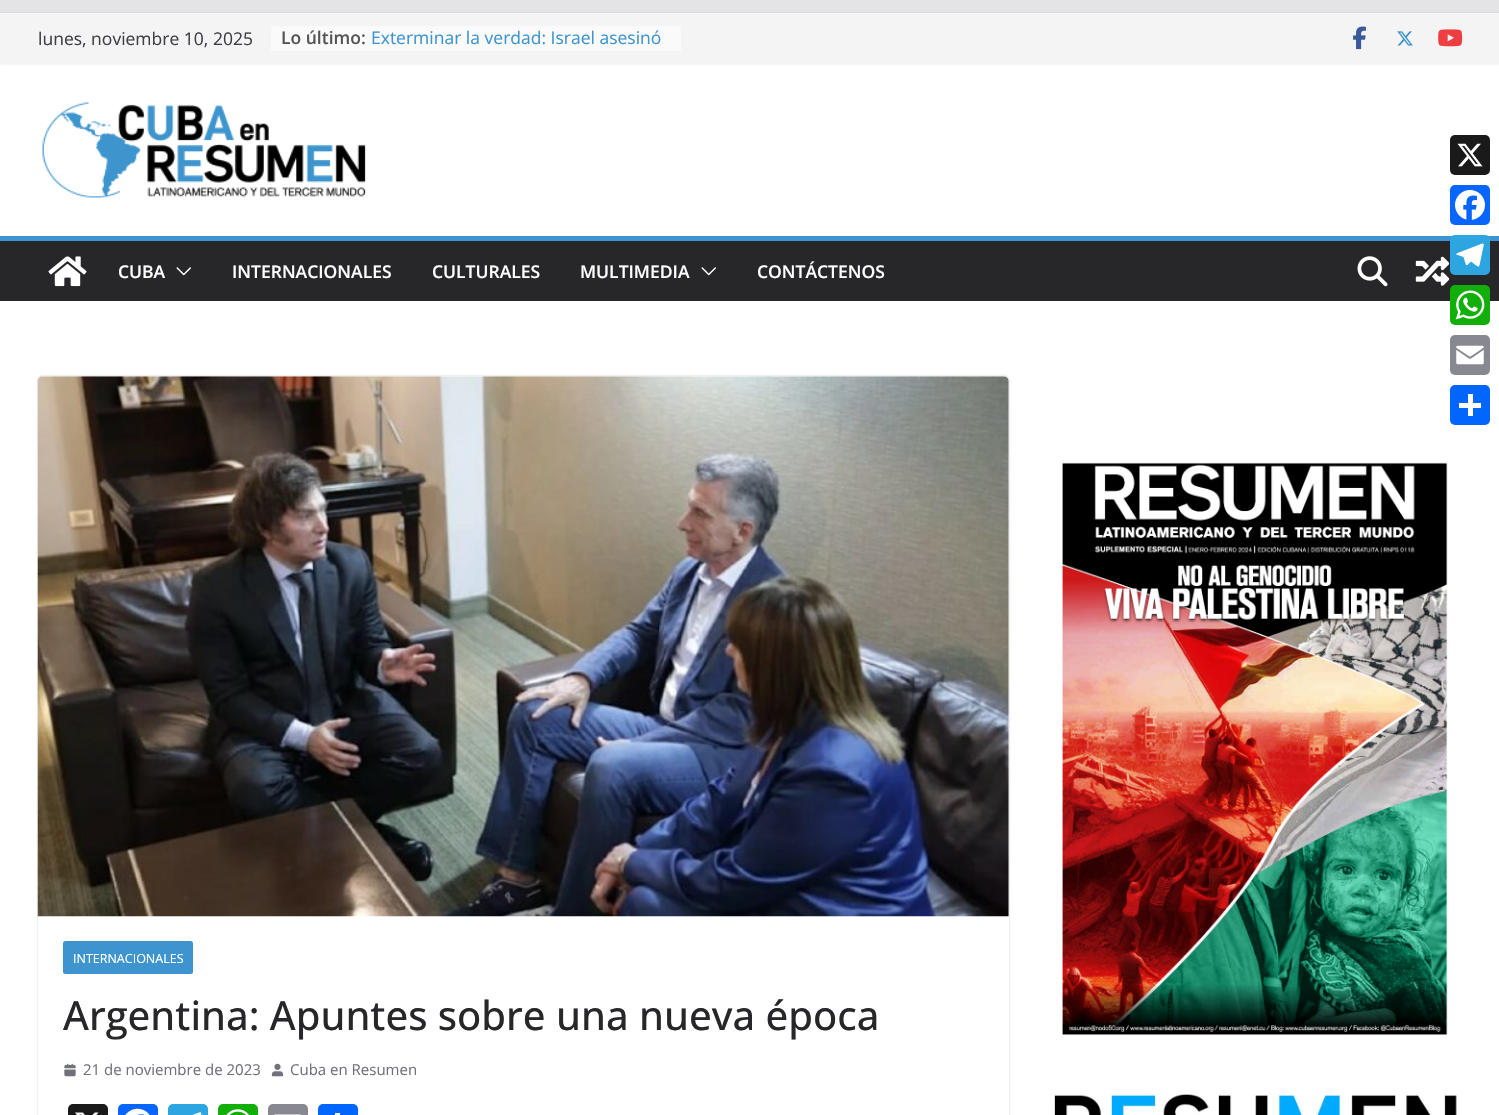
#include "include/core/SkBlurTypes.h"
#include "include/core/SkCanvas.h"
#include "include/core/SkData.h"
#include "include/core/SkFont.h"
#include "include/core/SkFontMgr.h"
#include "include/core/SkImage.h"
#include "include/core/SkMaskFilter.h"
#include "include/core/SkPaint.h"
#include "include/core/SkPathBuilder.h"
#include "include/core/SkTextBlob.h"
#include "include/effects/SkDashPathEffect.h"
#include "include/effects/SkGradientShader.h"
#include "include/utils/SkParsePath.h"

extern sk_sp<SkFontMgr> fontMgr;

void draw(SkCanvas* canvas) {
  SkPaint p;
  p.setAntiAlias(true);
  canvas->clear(SkColorSetRGB(228, 228, 231));
  p.setColor(SK_ColorWHITE);
  canvas->drawRect(SkRect::MakeLTRB(0, 64, 1499, 236), p);
  p.setColor(SkColorSetARGB(26, 0, 0, 0));
  p.setMaskFilter(SkMaskFilter::MakeBlur(kNormal_SkBlurStyle, 1));
  canvas->drawRect(SkRect::MakeLTRB(0, 13, 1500, 64), p);
  p.setMaskFilter(nullptr);
  p.setColor(SkColorSetRGB(244, 244, 245));
  canvas->drawRect(SkRect::MakeLTRB(0, 13, 1499, 64), p);
  p.setColor(SkColorSetRGB(250, 250, 250));
  canvas->drawRect(SkRect::MakeLTRB(271, 26, 681, 51), p);
  canvas->drawImageRect(SkImages::DeferredFromEncodedData(SkData::MakeFromFileName("images/1.png")), SkRect::MakeLTRB(1353, 26, 1366, 50), SkSamplingOptions());
  canvas->drawImageRect(SkImages::DeferredFromEncodedData(SkData::MakeFromFileName("images/2.png")), SkRect::MakeLTRB(1397, 31, 1413, 46), SkSamplingOptions());
  canvas->drawImageRect(SkImages::DeferredFromEncodedData(SkData::MakeFromFileName("images/3.png")), SkRect::MakeLTRB(1438, 29, 1463, 47), SkSamplingOptions());
  canvas->drawImageRect(SkImages::DeferredFromEncodedData(SkData::MakeFromFileName("images/4.png")), SkRect::MakeLTRB(42, 102, 366, 198), SkSamplingOptions());
  p.setColor(SkColorSetRGB(39, 39, 42));
  canvas->drawRect(SkRect::MakeLTRB(0, 241, 1499, 301), p);
  p.setColor(SkColorSetRGB(61, 148, 206));
  canvas->drawRect(SkRect::MakeLTRB(0, 236, 1499, 241), p);
  canvas->drawImageRect(SkImages::DeferredFromEncodedData(SkData::MakeFromFileName("images/5.png")), SkRect::MakeLTRB(48, 256, 87, 287), SkSamplingOptions());
  canvas->drawImageRect(SkImages::DeferredFromEncodedData(SkData::MakeFromFileName("images/6.png")), SkRect::MakeLTRB(176, 267, 191, 276), SkSamplingOptions());
  canvas->drawImageRect(SkImages::DeferredFromEncodedData(SkData::MakeFromFileName("images/6.png")), SkRect::MakeLTRB(701, 267, 716, 276), SkSamplingOptions());
  canvas->drawImageRect(SkImages::DeferredFromEncodedData(SkData::MakeFromFileName("images/7.png")), SkRect::MakeLTRB(1357, 256, 1388, 287), SkSamplingOptions());
  canvas->drawImageRect(SkImages::DeferredFromEncodedData(SkData::MakeFromFileName("images/8.png")), SkRect::MakeLTRB(1415, 256, 1450, 286), SkSamplingOptions());
  p.setColor(SK_ColorWHITE);
  canvas->drawRect(SkRect::MakeLTRB(0, 301, 1499, 1115), p);
  canvas->save();
  canvas->clipPath(SkPathBuilder(SkPathFillType::kEvenOdd).moveTo(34, 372).lineTo(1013, 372).lineTo(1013, 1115).lineTo(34, 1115).close().moveTo(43, 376).lineTo(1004, 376).cubicTo(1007, 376, 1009, 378, 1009, 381).lineTo(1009, 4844).cubicTo(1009, 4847, 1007, 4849, 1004, 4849).lineTo(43, 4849).cubicTo(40, 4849, 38, 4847, 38, 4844).lineTo(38, 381).cubicTo(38, 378, 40, 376, 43, 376).close().detach(), true);
  p.setColor(SkColorSetARGB(61, 0, 0, 0));
  p.setMaskFilter(SkMaskFilter::MakeBlur(kNormal_SkBlurStyle, 1));
  canvas->drawRoundRect(SkRect::MakeLTRB(38, 376, 1009, 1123), 5, 5, p);
  p.setMaskFilter(nullptr);
  canvas->restore();
  canvas->drawImageRect(SkImages::DeferredFromEncodedData(SkData::MakeFromFileName("images/9.png")), SkRect::MakeLTRB(37, 376, 1009, 917), SkSamplingOptions());
  p.setColor(SkColorSetRGB(61, 148, 206));
  canvas->drawRoundRect(SkRect::MakeLTRB(63, 941, 193, 974), 2.5f, 2.5f, p);
  canvas->drawImageRect(SkImages::DeferredFromEncodedData(SkData::MakeFromFileName("images/10.png")), SkRect::MakeLTRB(64, 1063, 76, 1077), SkSamplingOptions());
  canvas->drawImageRect(SkImages::DeferredFromEncodedData(SkData::MakeFromFileName("images/11.png")), SkRect::MakeLTRB(271, 1063, 284, 1077), SkSamplingOptions());
  p.setColor(SkColorSetRGB(26, 26, 26));
  canvas->drawRoundRect(SkRect::MakeLTRB(68, 1104, 108, 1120), 5, 5, p);
  canvas->drawImageRect(SkImages::DeferredFromEncodedData(SkData::MakeFromFileName("images/12.png")), SkRect::MakeLTRB(75, 1112, 99, 1115), SkSamplingOptions());
  p.setColor(SkColorSetRGB(8, 102, 255));
  canvas->drawRoundRect(SkRect::MakeLTRB(118, 1104, 158, 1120), 5, 5, p);
  canvas->drawImageRect(SkImages::DeferredFromEncodedData(SkData::MakeFromFileName("images/13.png")), SkRect::MakeLTRB(125, 1108, 150, 1115), SkSamplingOptions());
  p.setColor(SkColorSetRGB(44, 165, 224));
  canvas->drawRoundRect(SkRect::MakeLTRB(168, 1104, 208, 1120), 5, 5, p);
  canvas->drawImageRect(SkImages::DeferredFromEncodedData(SkData::MakeFromFileName("images/14.png")), SkRect::MakeLTRB(192, 1112, 202, 1115), SkSamplingOptions());
  p.setColor(SkColorSetRGB(18, 175, 10));
  canvas->drawRoundRect(SkRect::MakeLTRB(218, 1104, 258, 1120), 5, 5, p);
  canvas->drawImageRect(SkImages::DeferredFromEncodedData(SkData::MakeFromFileName("images/15.png")), SkRect::MakeLTRB(226, 1109, 249, 1115), SkSamplingOptions());
  p.setColor(SkColorSetRGB(136, 137, 144));
  canvas->drawRoundRect(SkRect::MakeLTRB(268, 1104, 308, 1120), 5, 5, p);
  canvas->drawImageRect(SkImages::DeferredFromEncodedData(SkData::MakeFromFileName("images/16.png")), SkRect::MakeLTRB(274, 1114, 301, 1115), SkSamplingOptions());
  p.setColor(SkColorSetRGB(1, 102, 255));
  canvas->drawRoundRect(SkRect::MakeLTRB(318, 1104, 358, 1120), 5, 5, p);
  p.setColor(SK_ColorWHITE);
  canvas->drawRect(SkRect::MakeLTRB(335, 1113, 340, 1115), p);
  canvas->drawImageRect(SkImages::DeferredFromEncodedData(SkData::MakeFromFileName("images/17.png")), SkRect::MakeLTRB(1061, 462, 1448, 1035), SkSamplingOptions());
  canvas->drawImageRect(SkImages::DeferredFromEncodedData(SkData::MakeFromFileName("images/18.png")), SkRect::MakeLTRB(1054, 1094, 1457, 1115), SkSamplingOptions());
  p.setColor(SkColorSetRGB(26, 26, 26));
  canvas->drawRoundRect(SkRect::MakeLTRB(1450, 135, 1490, 175), 5, 5, p);
  canvas->drawImageRect(SkImages::DeferredFromEncodedData(SkData::MakeFromFileName("images/19.png")), SkRect::MakeLTRB(1457, 143, 1483, 167), SkSamplingOptions());
  p.setColor(SkColorSetRGB(8, 102, 255));
  canvas->drawRoundRect(SkRect::MakeLTRB(1450, 185, 1490, 225), 5, 5, p);
  canvas->drawImageRect(SkImages::DeferredFromEncodedData(SkData::MakeFromFileName("images/20.png")), SkRect::MakeLTRB(1455, 190, 1485, 220), SkSamplingOptions());
  p.setColor(SkColorSetRGB(44, 165, 224));
  canvas->drawRoundRect(SkRect::MakeLTRB(1450, 235, 1490, 275), 5, 5, p);
  canvas->drawImageRect(SkImages::DeferredFromEncodedData(SkData::MakeFromFileName("images/21.png")), SkRect::MakeLTRB(1456, 243, 1484, 267), SkSamplingOptions());
  p.setColor(SkColorSetRGB(18, 175, 10));
  canvas->drawRoundRect(SkRect::MakeLTRB(1450, 285, 1490, 325), 5, 5, p);
  canvas->drawImageRect(SkImages::DeferredFromEncodedData(SkData::MakeFromFileName("images/22.png")), SkRect::MakeLTRB(1455, 290, 1485, 320), SkSamplingOptions());
  p.setColor(SkColorSetRGB(136, 137, 144));
  canvas->drawRoundRect(SkRect::MakeLTRB(1450, 335, 1490, 375), 5, 5, p);
  canvas->drawImageRect(SkImages::DeferredFromEncodedData(SkData::MakeFromFileName("images/23.png")), SkRect::MakeLTRB(1456, 345, 1484, 365), SkSamplingOptions());
  p.setColor(SkColorSetRGB(1, 102, 255));
  canvas->drawRoundRect(SkRect::MakeLTRB(1450, 385, 1490, 425), 5, 5, p);
  p.setColor(SK_ColorWHITE);
  canvas->drawRect(SkRect::MakeLTRB(1468, 394, 1473, 416), p);
  canvas->drawRect(SkRect::MakeLTRB(1459, 403, 1481, 408), p);
  SkFont font1(fontMgr->matchFamilyStyle("Open Sans", SkFontStyle::Normal()), 17.5f);
  font1.setSubpixel(true);
  p.setColor(SkColorSetRGB(63, 63, 70));
  canvas->drawString("lunes, noviembre 10, 2025", 38, 45, font1, p);
  SkFont font2(fontMgr->matchFamilyStyle("Open Sans", SkFontStyle(600, SkFontStyle::kNormal_Width, SkFontStyle::kUpright_Slant)), 17.5f);
  font2.setSubpixel(true);
  p.setColor(SkColorSetRGB(85, 85, 85));
  canvas->drawString("Lo último:", 281, 44, font2, p);
  p.setColor(SkColorSetRGB(61, 148, 206));
  canvas->drawString("Exterminar la verdad: Israel asesinó", 371, 44, font1, p);
  p.setColor(SK_ColorWHITE);
  canvas->drawString("CUBA", 118, 278, font2, p);
  canvas->drawString("INTERNACIONALES", 232, 278, font2, p);
  canvas->drawString("CULTURALES", 432, 278, font2, p);
  canvas->drawString("MULTIMEDIA", 580, 278, font2, p);
  canvas->drawString("CONTÁCTENOS", 757, 278, font2, p);
  SkFont font3(fontMgr->matchFamilyStyle("Open Sans", SkFontStyle::Normal()), 12.5f);
  font3.setSubpixel(true);
  canvas->drawString("INTERNACIONALES", 73, 963, font3, p);
  SkFont font4(fontMgr->matchFamilyStyle("Open Sans", SkFontStyle(500, SkFontStyle::kNormal_Width, SkFontStyle::kUpright_Slant)), 40);
  font4.setSubpixel(true);
  p.setColor(SkColorSetRGB(39, 39, 42));
  canvas->drawString("Argentina: Apuntes sobre una nueva época", 63, 1030, font4, p);
  SkFont font5(fontMgr->matchFamilyStyle("Open Sans", SkFontStyle::Normal()), 15);
  font5.setSubpixel(true);
  p.setColor(SkColorSetRGB(113, 113, 122));
  canvas->drawString("21 de noviembre de 2023", 83, 1075, font5, p);
  canvas->drawString("Cuba en Resumen", 290, 1075, font5, p);
}
